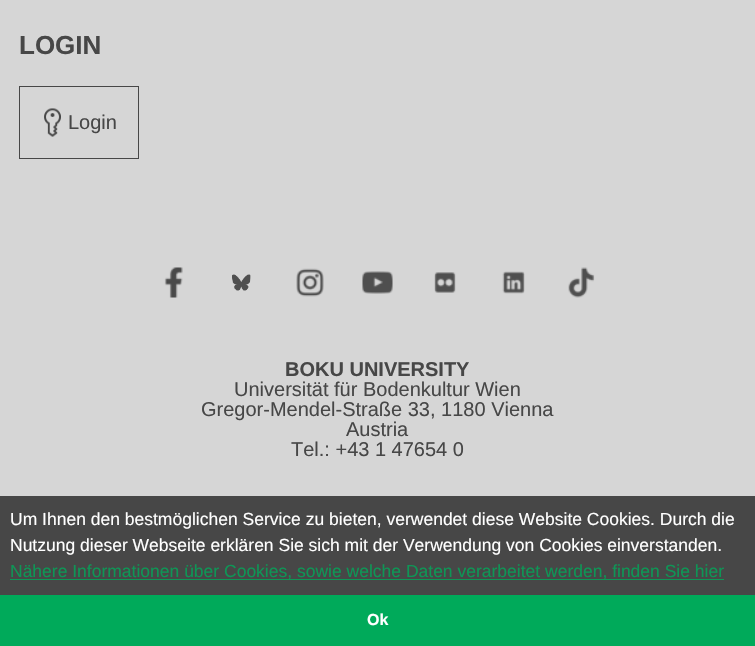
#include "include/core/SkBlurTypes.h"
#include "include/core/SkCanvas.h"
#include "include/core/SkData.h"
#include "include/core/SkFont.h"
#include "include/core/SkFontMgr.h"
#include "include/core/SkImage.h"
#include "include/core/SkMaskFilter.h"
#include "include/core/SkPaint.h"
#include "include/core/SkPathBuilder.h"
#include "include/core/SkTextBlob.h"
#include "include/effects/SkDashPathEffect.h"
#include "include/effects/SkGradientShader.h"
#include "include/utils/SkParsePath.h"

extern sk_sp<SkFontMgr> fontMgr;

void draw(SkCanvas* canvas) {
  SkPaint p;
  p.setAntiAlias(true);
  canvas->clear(SkColorSetRGB(214, 214, 214));
  p.setStyle(SkPaint::kStroke_Style);
  p.setStrokeWidth(1);
  p.setColor(SkColorSetRGB(71, 71, 71));
  canvas->drawRect(SkRect::MakeLTRB(19.5f, 86.5f, 138.5f, 158.5f), p);
  canvas->drawImageRect(SkImages::DeferredFromEncodedData(SkData::MakeFromFileName("images/1.png")), SkRect::MakeLTRB(44, 108, 61, 137), SkSamplingOptions());
  canvas->drawImageRect(SkImages::DeferredFromEncodedData(SkData::MakeFromFileName("images/2.png")), SkRect::MakeLTRB(164, 267, 183, 298), SkSamplingOptions());
  canvas->drawImageRect(SkImages::DeferredFromEncodedData(SkData::MakeFromFileName("images/3.png")), SkRect::MakeLTRB(232, 274, 251, 291), SkSamplingOptions());
  canvas->drawImageRect(SkImages::DeferredFromEncodedData(SkData::MakeFromFileName("images/4.png")), SkRect::MakeLTRB(296, 268, 324, 297), SkSamplingOptions());
  canvas->drawImageRect(SkImages::DeferredFromEncodedData(SkData::MakeFromFileName("images/5.png")), SkRect::MakeLTRB(362, 271, 393, 294), SkSamplingOptions());
  canvas->drawImageRect(SkImages::DeferredFromEncodedData(SkData::MakeFromFileName("images/6.png")), SkRect::MakeLTRB(434, 272, 456, 293), SkSamplingOptions());
  canvas->drawImageRect(SkImages::DeferredFromEncodedData(SkData::MakeFromFileName("images/7.png")), SkRect::MakeLTRB(502, 271, 525, 294), SkSamplingOptions());
  canvas->drawImageRect(SkImages::DeferredFromEncodedData(SkData::MakeFromFileName("images/8.png")), SkRect::MakeLTRB(568, 267, 595, 298), SkSamplingOptions());
  p.setStyle(SkPaint::kFill_Style);
  canvas->drawRect(SkRect::MakeLTRB(0, 496, 755, 595), p);
  p.setColor(SkColorSetRGB(14, 150, 86));
  canvas->drawRect(SkRect::MakeLTRB(10, 579, 724, 580), p);
  p.setColor(SkColorSetRGB(0, 170, 90));
  canvas->drawRect(SkRect::MakeLTRB(0, 595, 755, 646), p);
  SkFont font1(fontMgr->matchFamilyStyle("Liberation Sans", SkFontStyle::Bold()), 26);
  font1.setSubpixel(true);
  p.setColor(SkColorSetRGB(71, 71, 71));
  canvas->drawString("LOGIN", 19, 54, font1, p);
  SkFont font2(fontMgr->matchFamilyStyle("Liberation Sans", SkFontStyle::Normal()), 20);
  font2.setSubpixel(true);
  canvas->drawString("Login", 68, 129, font2, p);
  SkFont font3(fontMgr->matchFamilyStyle("Liberation Sans", SkFontStyle::Bold()), 20);
  font3.setSubpixel(true);
  canvas->drawString("BOKU UNIVERSITY", 285, 376, font3, p);
  canvas->drawString("Universität für Bodenkultur Wien", 234, 396, font2, p);
  canvas->drawString("Gregor-Mendel-Straße 33, 1180 Vienna", 201, 416, font2, p);
  canvas->drawString("Austria", 346, 436, font2, p);
  canvas->drawString("Tel.: +43 1 47654 0", 291, 456, font2, p);
  SkFont font4(fontMgr->matchFamilyStyle("Liberation Sans", SkFontStyle::Normal()), 17.5f);
  font4.setSubpixel(true);
  p.setColor(SK_ColorWHITE);
  canvas->drawString("Um Ihnen den bestmöglichen Service zu bieten, verwendet diese Website Cookies. Durch die", 10, 525, font4, p);
  canvas->drawString("Nutzung dieser Webseite erklären Sie sich mit der Verwendung von Cookies einverstanden.", 10, 551, font4, p);
  p.setColor(SkColorSetRGB(14, 150, 86));
  canvas->drawString("Nähere Informationen über Cookies, sowie welche Daten verarbeitet werden, finden Sie hier", 10, 577, font4, p);
  SkFont font5(fontMgr->matchFamilyStyle("Liberation Sans", SkFontStyle::Bold()), 16);
  font5.setSubpixel(true);
  p.setColor(SK_ColorWHITE);
  canvas->drawString("Ok", 367, 625, font5, p);
}
